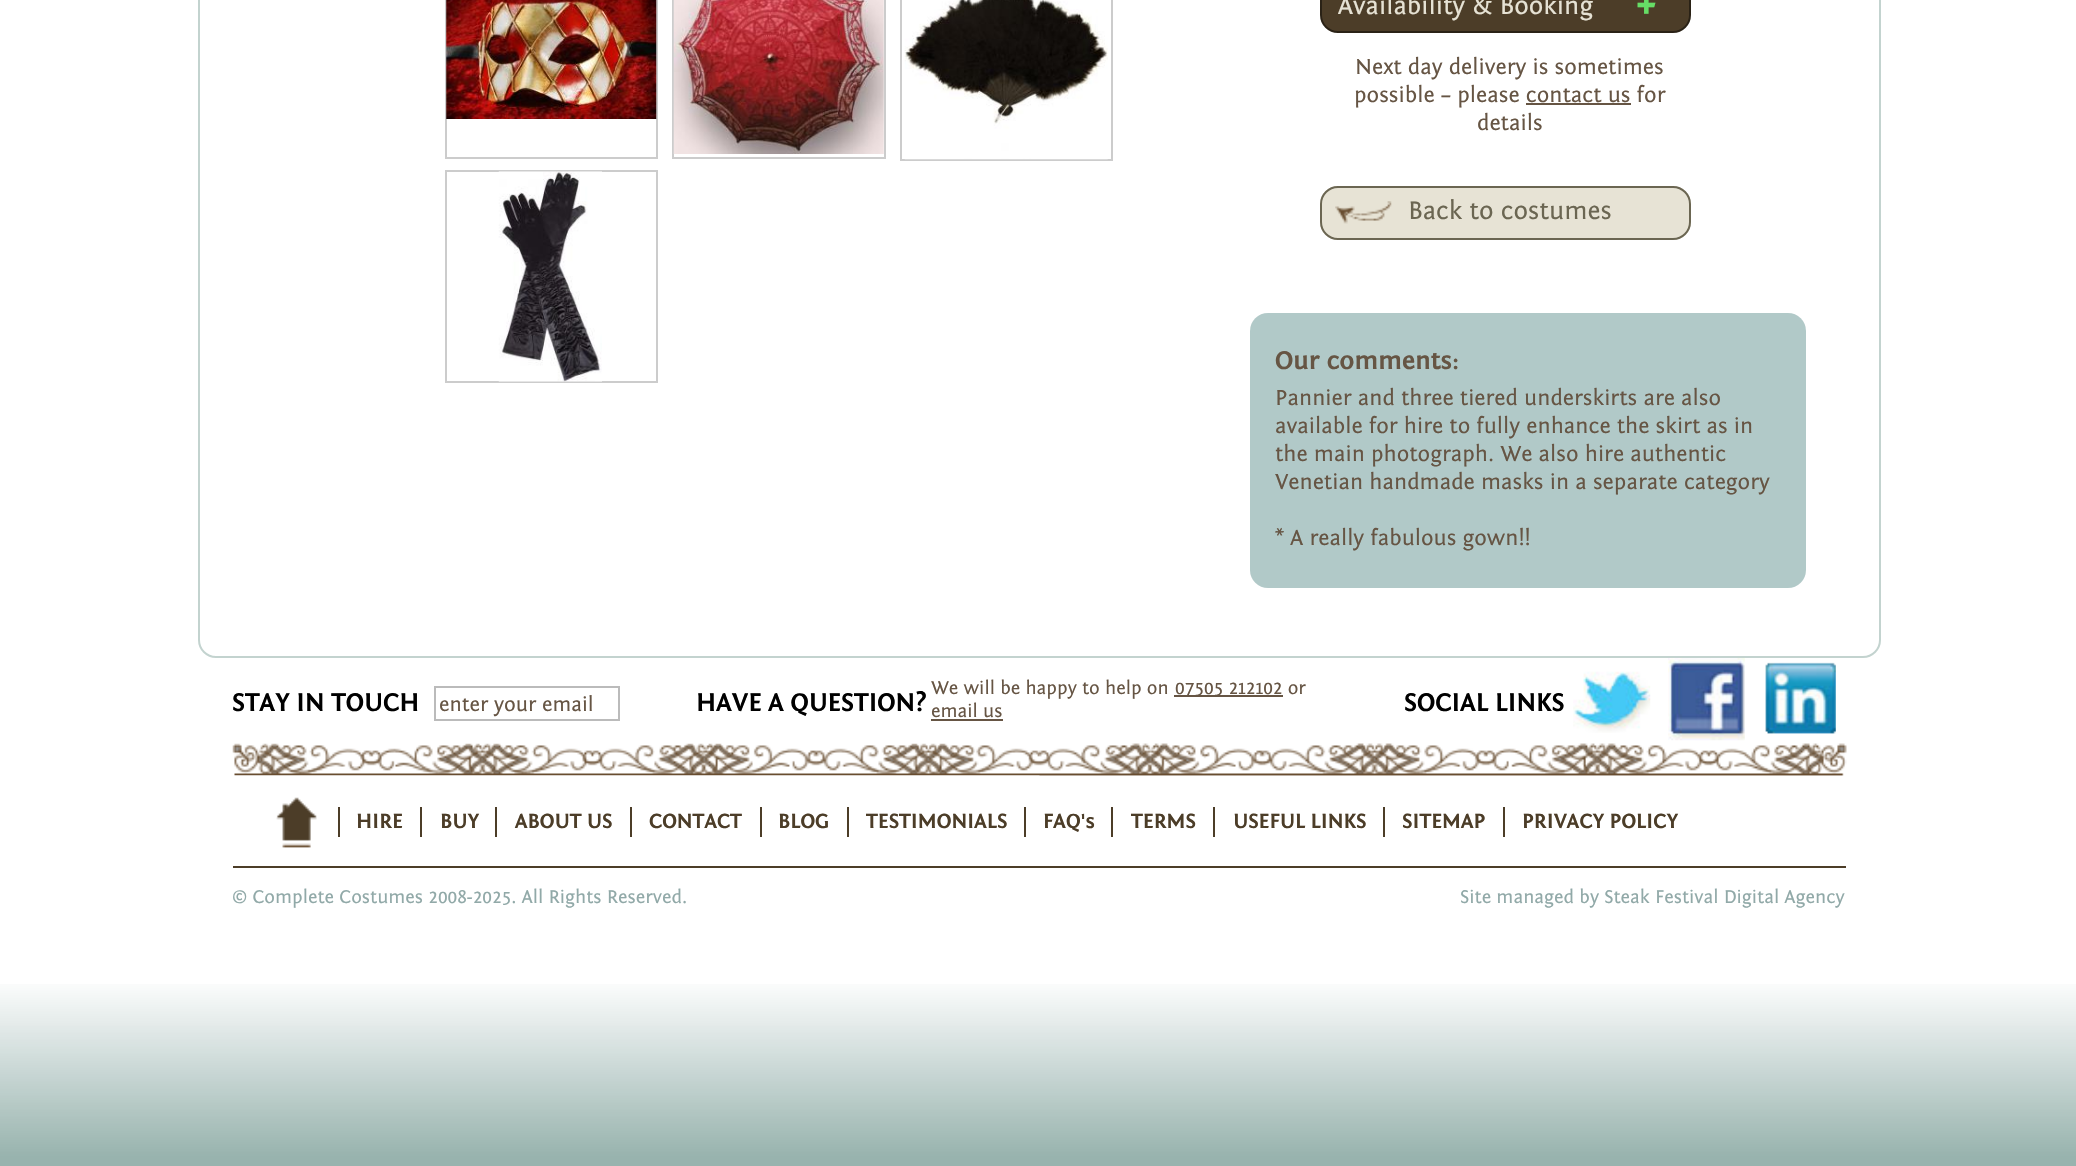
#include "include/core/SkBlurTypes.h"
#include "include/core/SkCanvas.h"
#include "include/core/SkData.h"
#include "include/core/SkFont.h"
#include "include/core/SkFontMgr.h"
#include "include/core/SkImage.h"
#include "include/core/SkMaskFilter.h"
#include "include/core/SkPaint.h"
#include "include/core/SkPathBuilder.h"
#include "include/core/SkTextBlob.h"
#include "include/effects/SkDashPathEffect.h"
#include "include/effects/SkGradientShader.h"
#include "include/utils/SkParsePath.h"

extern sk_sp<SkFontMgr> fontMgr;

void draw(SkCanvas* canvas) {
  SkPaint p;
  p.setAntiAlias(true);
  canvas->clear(SK_ColorWHITE);
  canvas->drawImageRect(SkImages::DeferredFromEncodedData(SkData::MakeFromFileName("images/1.png")), SkRect::MakeLTRB(0, 984, 2076, 1166), SkSamplingOptions());
  p.setStyle(SkPaint::kStroke_Style);
  p.setStrokeWidth(2);
  p.setColor(SkColorSetRGB(195, 211, 207));
  canvas->drawRoundRect(SkRect::MakeLTRB(199, -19, 1880, 657), 17, 17, p);
  p.setColor(SkColorSetRGB(204, 204, 204));
  canvas->drawRect(SkRect::MakeLTRB(446, -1, 657, 158), p);
  canvas->drawImageRect(SkImages::DeferredFromEncodedData(SkData::MakeFromFileName("images/2.png")), SkRect::MakeLTRB(446, 0, 657, 119), SkSamplingOptions());
  canvas->drawRect(SkRect::MakeLTRB(673, -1, 885, 158), p);
  canvas->drawImageRect(SkImages::DeferredFromEncodedData(SkData::MakeFromFileName("images/3.png")), SkRect::MakeLTRB(673, 0, 884, 154), SkSamplingOptions());
  canvas->drawRect(SkRect::MakeLTRB(901, -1, 1112, 160), p);
  canvas->drawImageRect(SkImages::DeferredFromEncodedData(SkData::MakeFromFileName("images/4.png")), SkRect::MakeLTRB(904, 0, 1108, 160), SkSamplingOptions());
  canvas->drawRect(SkRect::MakeLTRB(446, 171, 657, 382), p);
  canvas->drawImageRect(SkImages::DeferredFromEncodedData(SkData::MakeFromFileName("images/5.png")), SkRect::MakeLTRB(498, 171, 602, 382), SkSamplingOptions());
  p.setStyle(SkPaint::kFill_Style);
  p.setColor(SkColorSetRGB(76, 61, 40));
  canvas->drawRoundRect(SkRect::MakeLTRB(1321, -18, 1690, 32), 17, 17, p);
  p.setStyle(SkPaint::kStroke_Style);
  p.setColor(SkColorSetRGB(42, 34, 22));
  canvas->drawRoundRect(SkRect::MakeLTRB(1321, -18, 1690, 32), 17, 17, p);
  p.setStyle(SkPaint::kFill_Style);
  p.setColor(SkColorSetRGB(102, 85, 68));
  canvas->drawRect(SkRect::MakeLTRB(1526, 103, 1631, 105), p);
  p.setColor(SkColorSetRGB(231, 227, 213));
  canvas->drawRoundRect(SkRect::MakeLTRB(1320, 186, 1691, 240), 18, 18, p);
  canvas->drawImageRect(SkImages::DeferredFromEncodedData(SkData::MakeFromFileName("images/6.png")), SkRect::MakeLTRB(1335, 201, 1392, 224), SkSamplingOptions());
  p.setStyle(SkPaint::kStroke_Style);
  p.setColor(SkColorSetRGB(107, 102, 82));
  canvas->drawRoundRect(SkRect::MakeLTRB(1321, 187, 1690, 239), 17, 17, p);
  p.setStyle(SkPaint::kFill_Style);
  p.setColor(SkColorSetRGB(177, 201, 200));
  canvas->drawRoundRect(SkRect::MakeLTRB(1250, 313, 1806, 588), 18, 18, p);
  p.setStyle(SkPaint::kStroke_Style);
  p.setColor(SkColorSetRGB(187, 187, 187));
  canvas->drawRect(SkRect::MakeLTRB(435, 687, 619, 720), p);
  p.setStyle(SkPaint::kFill_Style);
  p.setColor(SkColorSetRGB(102, 85, 68));
  canvas->drawRect(SkRect::MakeLTRB(1174, 695, 1283, 697), p);
  canvas->drawRect(SkRect::MakeLTRB(931, 719, 1003, 721), p);
  canvas->drawImageRect(SkImages::DeferredFromEncodedData(SkData::MakeFromFileName("images/7.png")), SkRect::MakeLTRB(1573, 671, 1651, 733), SkSamplingOptions());
  canvas->drawImageRect(SkImages::DeferredFromEncodedData(SkData::MakeFromFileName("images/8.png")), SkRect::MakeLTRB(1668, 658, 1745, 741), SkSamplingOptions());
  canvas->drawImageRect(SkImages::DeferredFromEncodedData(SkData::MakeFromFileName("images/9.png")), SkRect::MakeLTRB(1765, 662, 1836, 734), SkSamplingOptions());
  canvas->drawImageRect(SkImages::DeferredFromEncodedData(SkData::MakeFromFileName("images/10.png")), SkRect::MakeLTRB(232, 743, 1847, 776), SkSamplingOptions());
  canvas->drawImageRect(SkImages::DeferredFromEncodedData(SkData::MakeFromFileName("images/11.png")), SkRect::MakeLTRB(1039, 743, 1847, 776), SkSamplingOptions());
  p.setColor(SkColorSetRGB(76, 61, 40));
  canvas->drawRect(SkRect::MakeLTRB(233, 866, 1846, 868), p);
  canvas->drawImageRect(SkImages::DeferredFromEncodedData(SkData::MakeFromFileName("images/12.png")), SkRect::MakeLTRB(276, 797, 317, 848), SkSamplingOptions());
  canvas->drawRect(SkRect::MakeLTRB(338, 807, 340, 837), p);
  canvas->drawRect(SkRect::MakeLTRB(420, 807, 422, 837), p);
  canvas->drawRect(SkRect::MakeLTRB(495, 807, 497, 837), p);
  canvas->drawRect(SkRect::MakeLTRB(630, 807, 632, 837), p);
  canvas->drawRect(SkRect::MakeLTRB(760, 807, 762, 837), p);
  canvas->drawRect(SkRect::MakeLTRB(847, 807, 849, 837), p);
  canvas->drawRect(SkRect::MakeLTRB(1024, 807, 1026, 837), p);
  canvas->drawRect(SkRect::MakeLTRB(1111, 807, 1113, 837), p);
  canvas->drawRect(SkRect::MakeLTRB(1213, 807, 1215, 837), p);
  canvas->drawRect(SkRect::MakeLTRB(1383, 807, 1385, 837), p);
  canvas->drawRect(SkRect::MakeLTRB(1503, 807, 1505, 837), p);
  SkFont font1(fontMgr->matchFamilyStyle("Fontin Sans", SkFontStyle::Normal()), 26.4f);
  font1.setSubpixel(true);
  p.setColor(SkColorSetRGB(230, 226, 212));
  canvas->drawString("Availability & Booking", 1338, 14, font1, p);
  SkFont font2(fontMgr->matchFamilyStyle("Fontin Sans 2", SkFontStyle::Bold()), 45);
  font2.setSubpixel(true);
  p.setColor(SkColorSetRGB(102, 221, 102));
  canvas->drawString("+", 1635, 17, font2, p);
  SkFont font3(fontMgr->matchFamilyStyle("Fontin Sans", SkFontStyle::Normal()), 22.75f);
  font3.setSubpixel(true);
  p.setColor(SkColorSetRGB(102, 85, 68));
  canvas->drawString("Next day delivery is sometimes", 1355, 74, font3, p);
  canvas->drawString("possible – please contact us for", 1354, 102, font3, p);
  canvas->drawString("details", 1477, 130, font3, p);
  p.setColor(SkColorSetRGB(107, 102, 82));
  canvas->drawString("Back to costumes", 1408, 219, font1, p);
  SkFont font4(fontMgr->matchFamilyStyle("Fontin Sans", SkFontStyle::Bold()), 26.4f);
  font4.setSubpixel(true);
  p.setColor(SkColorSetRGB(102, 85, 68));
  canvas->drawString("Our comments:", 1275, 369, font4, p);
  canvas->drawString("Pannier and three tiered underskirts are also", 1275, 405, font3, p);
  canvas->drawString("available for hire to fully enhance the skirt as in", 1275, 433, font3, p);
  canvas->drawString("the main photograph. We also hire authentic", 1275, 461, font3, p);
  canvas->drawString("Venetian handmade masks in a separate category", 1275, 489, font3, p);
  canvas->drawString("* A really fabulous gown!!", 1275, 545, font3, p);
  p.setColor(SK_ColorBLACK);
  canvas->drawString("STAY IN TOUCH", 232, 711, font4, p);
  SkFont font5(fontMgr->matchFamilyStyle("Fontin Sans", SkFontStyle::Normal()), 21.25f);
  font5.setSubpixel(true);
  p.setColor(SkColorSetRGB(102, 85, 68));
  canvas->drawString("enter your email", 439, 711, font5, p);
  p.setColor(SK_ColorBLACK);
  canvas->drawString("HAVE A QUESTION?", 696, 711, font4, p);
  SkFont font6(fontMgr->matchFamilyStyle("Fontin Sans", SkFontStyle::Normal()), 19.3f);
  font6.setSubpixel(true);
  p.setColor(SkColorSetRGB(102, 85, 68));
  canvas->drawString("We will be happy to help on", 931, 694, font6, p);
  canvas->drawString("07505 212102 or", 1175, 694, font6, p);
  canvas->drawString("email us", 931, 717, font6, p);
  p.setColor(SK_ColorBLACK);
  canvas->drawString("SOCIAL LINKS", 1404, 711, font4, p);
  SkFont font7(fontMgr->matchFamilyStyle("Fontin Sans", SkFontStyle::Bold()), 21.25f);
  font7.setSubpixel(true);
  p.setColor(SkColorSetRGB(76, 61, 40));
  canvas->drawString("HIRE", 356, 828, font7, p);
  canvas->drawString("BUY", 440, 828, font7, p);
  canvas->drawString("ABOUT US", 515, 828, font7, p);
  canvas->drawString("CONTACT", 649, 828, font7, p);
  canvas->drawString("BLOG", 778, 828, font7, p);
  canvas->drawString("TESTIMONIALS", 866, 828, font7, p);
  canvas->drawString("FAQ's", 1043, 828, font7, p);
  canvas->drawString("TERMS", 1131, 828, font7, p);
  canvas->drawString("USEFUL LINKS", 1233, 828, font7, p);
  canvas->drawString("SITEMAP", 1402, 828, font7, p);
  canvas->drawString("PRIVACY POLICY", 1522, 828, font7, p);
  p.setColor(SkColorSetRGB(145, 169, 168));
  canvas->drawString("© Complete Costumes 2008-2025. All Rights Reserved.", 232, 903, font6, p);
  canvas->drawString("Site managed by Steak Festival Digital Agency", 1460, 903, font6, p);
}
